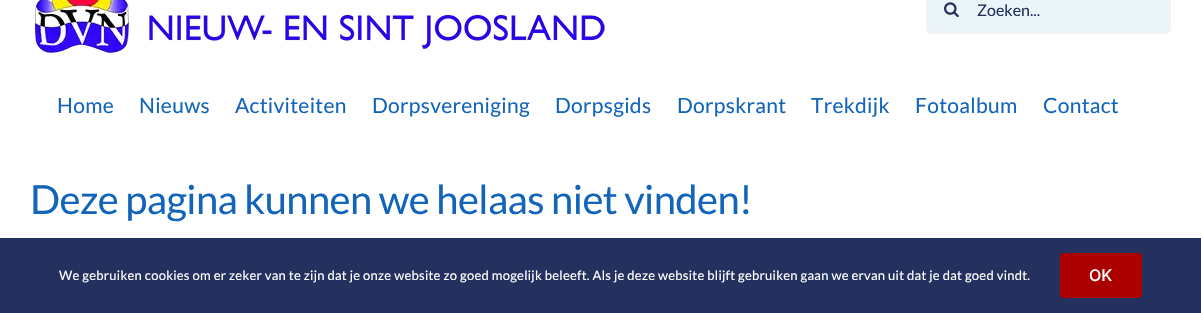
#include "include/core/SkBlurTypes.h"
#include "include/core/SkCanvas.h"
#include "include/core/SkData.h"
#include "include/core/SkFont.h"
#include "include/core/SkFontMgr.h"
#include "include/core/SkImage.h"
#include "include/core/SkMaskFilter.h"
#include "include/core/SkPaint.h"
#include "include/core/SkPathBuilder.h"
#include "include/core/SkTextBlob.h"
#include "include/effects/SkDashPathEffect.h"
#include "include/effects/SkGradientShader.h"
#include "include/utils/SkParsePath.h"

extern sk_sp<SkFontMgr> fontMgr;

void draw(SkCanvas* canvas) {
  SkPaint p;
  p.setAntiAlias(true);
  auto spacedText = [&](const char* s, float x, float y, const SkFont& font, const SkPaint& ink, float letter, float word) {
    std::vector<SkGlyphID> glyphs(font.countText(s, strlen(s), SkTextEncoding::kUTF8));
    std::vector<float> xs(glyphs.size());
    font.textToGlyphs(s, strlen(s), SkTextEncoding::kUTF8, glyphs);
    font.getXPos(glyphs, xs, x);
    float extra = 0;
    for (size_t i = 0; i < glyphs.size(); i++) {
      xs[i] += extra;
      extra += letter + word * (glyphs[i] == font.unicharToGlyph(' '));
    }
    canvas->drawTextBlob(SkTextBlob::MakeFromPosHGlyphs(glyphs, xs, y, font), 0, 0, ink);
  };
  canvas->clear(SK_ColorWHITE);
  canvas->drawImageRect(SkImages::DeferredFromEncodedData(SkData::MakeFromFileName("images/1.png")), SkRect::MakeLTRB(35, 0, 605, 53), SkSamplingOptions());
  p.setColor(SkColorSetRGB(235, 244, 249));
  canvas->drawRoundRect(SkRect::MakeLTRB(926.5f, -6.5f, 1170.5f, 33.5f), 5.5f, 5.5f, p);
  p.setStyle(SkPaint::kStroke_Style);
  p.setStrokeWidth(1);
  p.setColor(SkColorSetRGB(242, 243, 245));
  canvas->drawRoundRect(SkRect::MakeLTRB(926.5f, -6.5f, 1170.5f, 33.5f), 5.5f, 5.5f, p);
  canvas->drawImageRect(SkImages::DeferredFromEncodedData(SkData::MakeFromFileName("images/2.png")), SkRect::MakeLTRB(944, 2, 959, 18), SkSamplingOptions());
  p.setStyle(SkPaint::kFill_Style);
  p.setColor(SkColorSetRGB(36, 49, 94));
  canvas->drawRect(SkRect::MakeLTRB(0, 238, 1201, 313), p);
  p.setColor(SkColorSetRGB(170, 0, 0));
  canvas->drawRoundRect(SkRect::MakeLTRB(1060, 253, 1142, 298), 4, 4, p);
  SkFont font1(fontMgr->matchFamilyStyle("Lato", SkFontStyle::Normal()), 16);
  font1.setSubpixel(true);
  p.setColor(SkColorSetRGB(36, 49, 94));
  canvas->drawString("Zoeken...", 977, 16, font1, p);
  SkFont font2(fontMgr->matchFamilyStyle("Lato", SkFontStyle::Normal()), 21);
  font2.setSubpixel(true);
  p.setColor(SkColorSetRGB(19, 101, 186));
  spacedText("Home", 57, 113, font2, p, 0.3f, 0);
  spacedText("Nieuws", 139, 113, font2, p, 0.3f, 0);
  spacedText("Activiteiten", 235, 113, font2, p, 0.3f, 0);
  spacedText("Dorpsvereniging", 372, 113, font2, p, 0.3f, 0);
  spacedText("Dorpsgids", 555, 113, font2, p, 0.3f, 0);
  spacedText("Dorpskrant", 677, 113, font2, p, 0.3f, 0);
  spacedText("Trekdijk", 811, 113, font2, p, 0.3f, 0);
  spacedText("Fotoalbum", 915, 113, font2, p, 0.3f, 0);
  spacedText("Contact", 1043, 113, font2, p, 0.3f, 0);
  SkFont font3(fontMgr->matchFamilyStyle("Lato", SkFontStyle::Normal()), 40);
  font3.setSubpixel(true);
  spacedText("Deze pagina kunnen we helaas niet vinden!", 30, 214, font3, p, -0.6f, 0);
  SkFont font4(fontMgr->matchFamilyStyle("Lato", SkFontStyle::Normal()), 13);
  font4.setSubpixel(true);
  p.setColor(SK_ColorWHITE);
  spacedText("We gebruiken cookies om er zeker van te zijn dat je onze website zo goed mogelijk beleeft. Als je deze website blijft gebruiken gaan we ervan uit dat je dat goed vindt.", 59, 280, font4, p, 0.26f, 0);
  SkFont font5(fontMgr->matchFamilyStyle("Inter", SkFontStyle(500, SkFontStyle::kNormal_Width, SkFontStyle::kUpright_Slant)), 16);
  font5.setSubpixel(true);
  canvas->drawString("OK", 1089, 281, font5, p);
}
